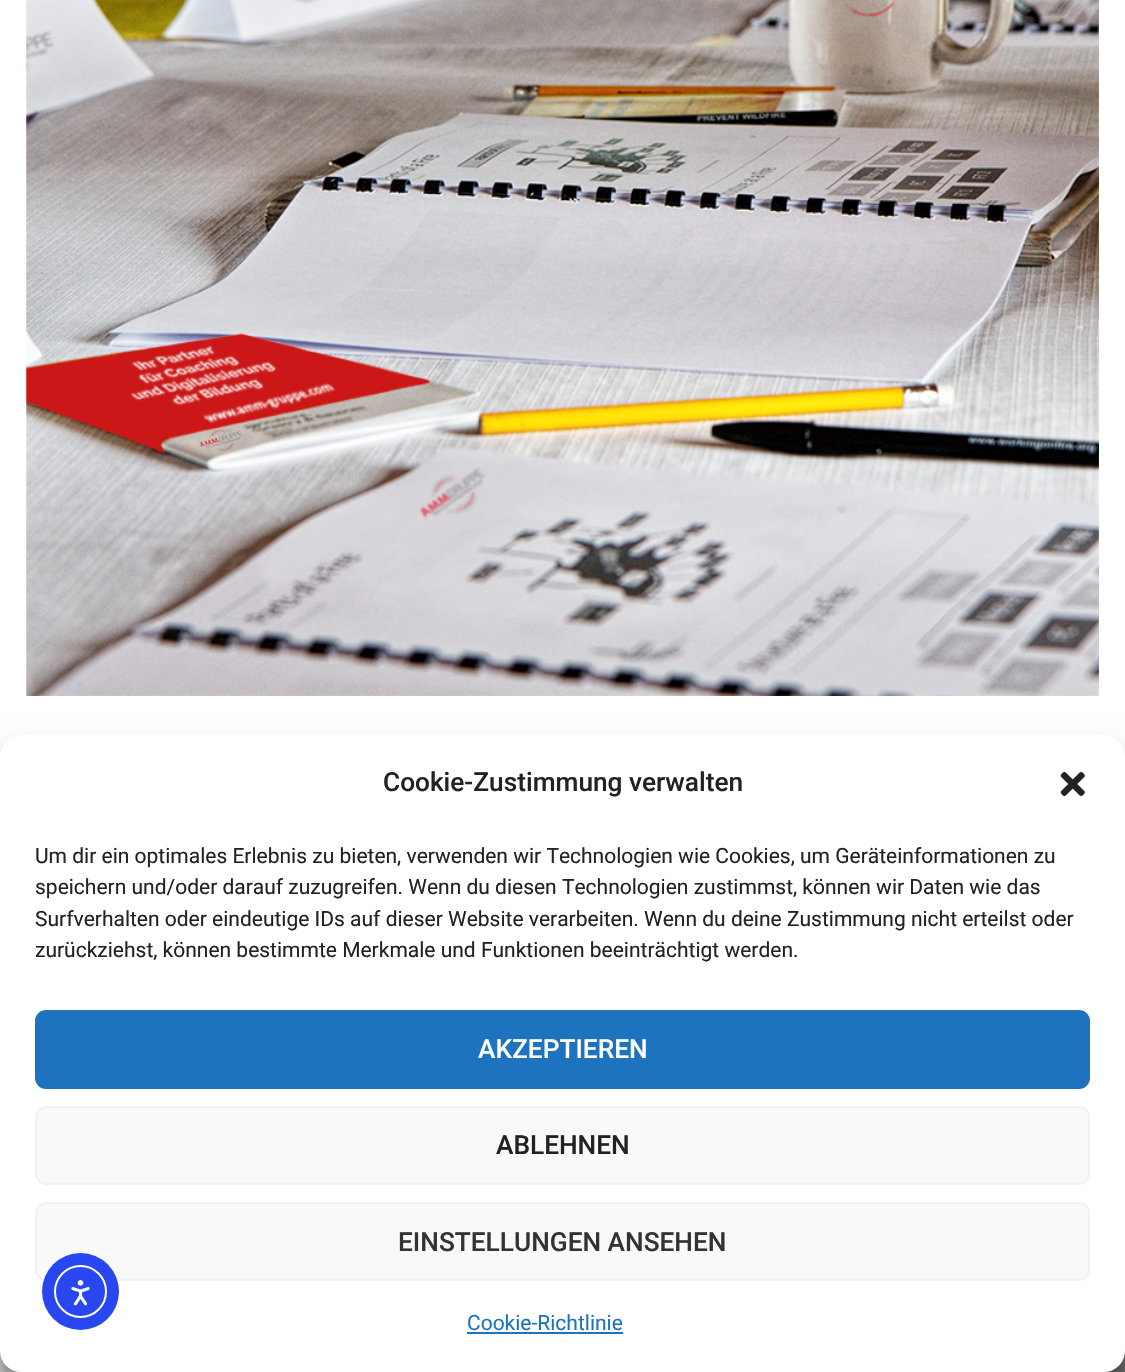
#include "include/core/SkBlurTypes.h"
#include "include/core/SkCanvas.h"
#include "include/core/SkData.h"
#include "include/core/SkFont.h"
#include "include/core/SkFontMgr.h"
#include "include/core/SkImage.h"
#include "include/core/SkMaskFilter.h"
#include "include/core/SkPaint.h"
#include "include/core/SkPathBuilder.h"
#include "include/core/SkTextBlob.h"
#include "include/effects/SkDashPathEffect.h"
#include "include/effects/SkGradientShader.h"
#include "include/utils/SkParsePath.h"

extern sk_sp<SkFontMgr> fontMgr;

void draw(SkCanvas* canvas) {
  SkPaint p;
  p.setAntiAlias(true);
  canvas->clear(SK_ColorWHITE);
  canvas->drawImageRect(SkImages::DeferredFromEncodedData(SkData::MakeFromFileName("images/1.png")), SkRect::MakeLTRB(26, 0, 1099, 696), SkSamplingOptions());
  {
    const SkColor colors[] = {SkColorSetRGB(211, 211, 211), SkColorSetRGB(112, 113, 115)};
    const float stops[] = {0.42f, 1};
    const SkPoint ends[] = {{0, 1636}, {1125, 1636}};
    p.setShader(SkGradientShader::MakeLinear(ends, colors, stops, 2, SkTileMode::kClamp));
    p.setAlpha(255);
  }
  canvas->drawRect(SkRect::MakeLTRB(0, 1351, 1125, 1372), p);
  p.setShader(nullptr);
  p.setColor(SkColorSetARGB(59, 0, 0, 0));
  p.setMaskFilter(SkMaskFilter::MakeBlur(kNormal_SkBlurStyle, 5));
  canvas->drawRoundRect(SkRect::MakeLTRB(0, 746, 1125, 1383), 21, 21, p);
  p.setMaskFilter(nullptr);
  p.setColor(SkColorSetARGB(48, 0, 0, 0));
  p.setMaskFilter(SkMaskFilter::MakeBlur(kNormal_SkBlurStyle, 17.5f));
  canvas->drawRoundRect(SkRect::MakeLTRB(0, 753, 1125, 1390), 21, 21, p);
  p.setMaskFilter(nullptr);
  p.setColor(SK_ColorWHITE);
  canvas->drawRoundRect(SkRect::MakeLTRB(0, 735, 1125, 1372), 21, 21, p);
  canvas->drawImageRect(SkImages::DeferredFromEncodedData(SkData::MakeFromFileName("images/2.png")), SkRect::MakeLTRB(1060, 772, 1085, 796), SkSamplingOptions());
  p.setColor(SkColorSetRGB(30, 115, 190));
  canvas->drawRoundRect(SkRect::MakeLTRB(36, 1011, 1089, 1088), 10, 10, p);
  p.setStyle(SkPaint::kStroke_Style);
  p.setStrokeWidth(2);
  canvas->drawRoundRect(SkRect::MakeLTRB(36, 1011, 1089, 1088), 10, 10, p);
  p.setStyle(SkPaint::kFill_Style);
  p.setColor(SkColorSetRGB(249, 249, 249));
  canvas->drawRoundRect(SkRect::MakeLTRB(36, 1107, 1089, 1184), 10, 10, p);
  p.setStyle(SkPaint::kStroke_Style);
  p.setColor(SkColorSetRGB(242, 242, 242));
  canvas->drawRoundRect(SkRect::MakeLTRB(36, 1107, 1089, 1184), 10, 10, p);
  p.setStyle(SkPaint::kFill_Style);
  p.setColor(SkColorSetRGB(249, 249, 249));
  canvas->drawRoundRect(SkRect::MakeLTRB(36, 1203, 1089, 1280), 10, 10, p);
  p.setStyle(SkPaint::kStroke_Style);
  p.setColor(SkColorSetRGB(242, 242, 242));
  canvas->drawRoundRect(SkRect::MakeLTRB(36, 1203, 1089, 1280), 10, 10, p);
  p.setStyle(SkPaint::kFill_Style);
  p.setColor(SkColorSetRGB(30, 115, 190));
  canvas->drawRect(SkRect::MakeLTRB(467, 1332, 623, 1334), p);
  p.setColor(SkColorSetRGB(40, 71, 243));
  canvas->drawCircle(80.5f, 1291.5f, 38.5f, p);
  p.setStyle(SkPaint::kStroke_Style);
  p.setColor(SK_ColorWHITE);
  canvas->drawCircle(80.5f, 1291.5f, 25.5f, p);
  canvas->drawImageRect(SkImages::DeferredFromEncodedData(SkData::MakeFromFileName("images/3.png")), SkRect::MakeLTRB(71, 1280, 90, 1306), SkSamplingOptions());
  SkFont font1(fontMgr->matchFamilyStyle("Roboto", SkFontStyle(500, SkFontStyle::kNormal_Width, SkFontStyle::kUpright_Slant)), 26.25f);
  font1.setSubpixel(true);
  p.setStyle(SkPaint::kFill_Style);
  p.setColor(SkColorSetRGB(34, 34, 34));
  canvas->drawString("Cookie-Zustimmung verwalten", 383, 791, font1, p);
  SkFont font2(fontMgr->matchFamilyStyle("Roboto", SkFontStyle::Normal()), 21);
  font2.setSubpixel(true);
  canvas->drawString("Um dir ein optimales Erlebnis zu bieten, verwenden wir Technologien wie Cookies, um Geräteinformationen zu", 35, 863, font2, p);
  canvas->drawString("speichern und/oder darauf zuzugreifen. Wenn du diesen Technologien zustimmst, können wir Daten wie das", 35, 894, font2, p);
  canvas->drawString("Surfverhalten oder eindeutige IDs auf dieser Website verarbeiten. Wenn du deine Zustimmung nicht erteilst oder", 35, 926, font2, p);
  canvas->drawString("zurückziehst, können bestimmte Merkmale und Funktionen beeinträchtigt werden.", 35, 957, font2, p);
  p.setColor(SK_ColorWHITE);
  canvas->drawString("AKZEPTIEREN", 478, 1058, font1, p);
  p.setColor(SkColorSetRGB(34, 34, 34));
  canvas->drawString("ABLEHNEN", 496, 1154, font1, p);
  p.setColor(SkColorSetRGB(51, 51, 51));
  canvas->drawString("EINSTELLUNGEN ANSEHEN", 398, 1251, font1, p);
  p.setColor(SkColorSetRGB(30, 115, 190));
  canvas->drawString("Cookie-Richtlinie", 467, 1330, font2, p);
}
